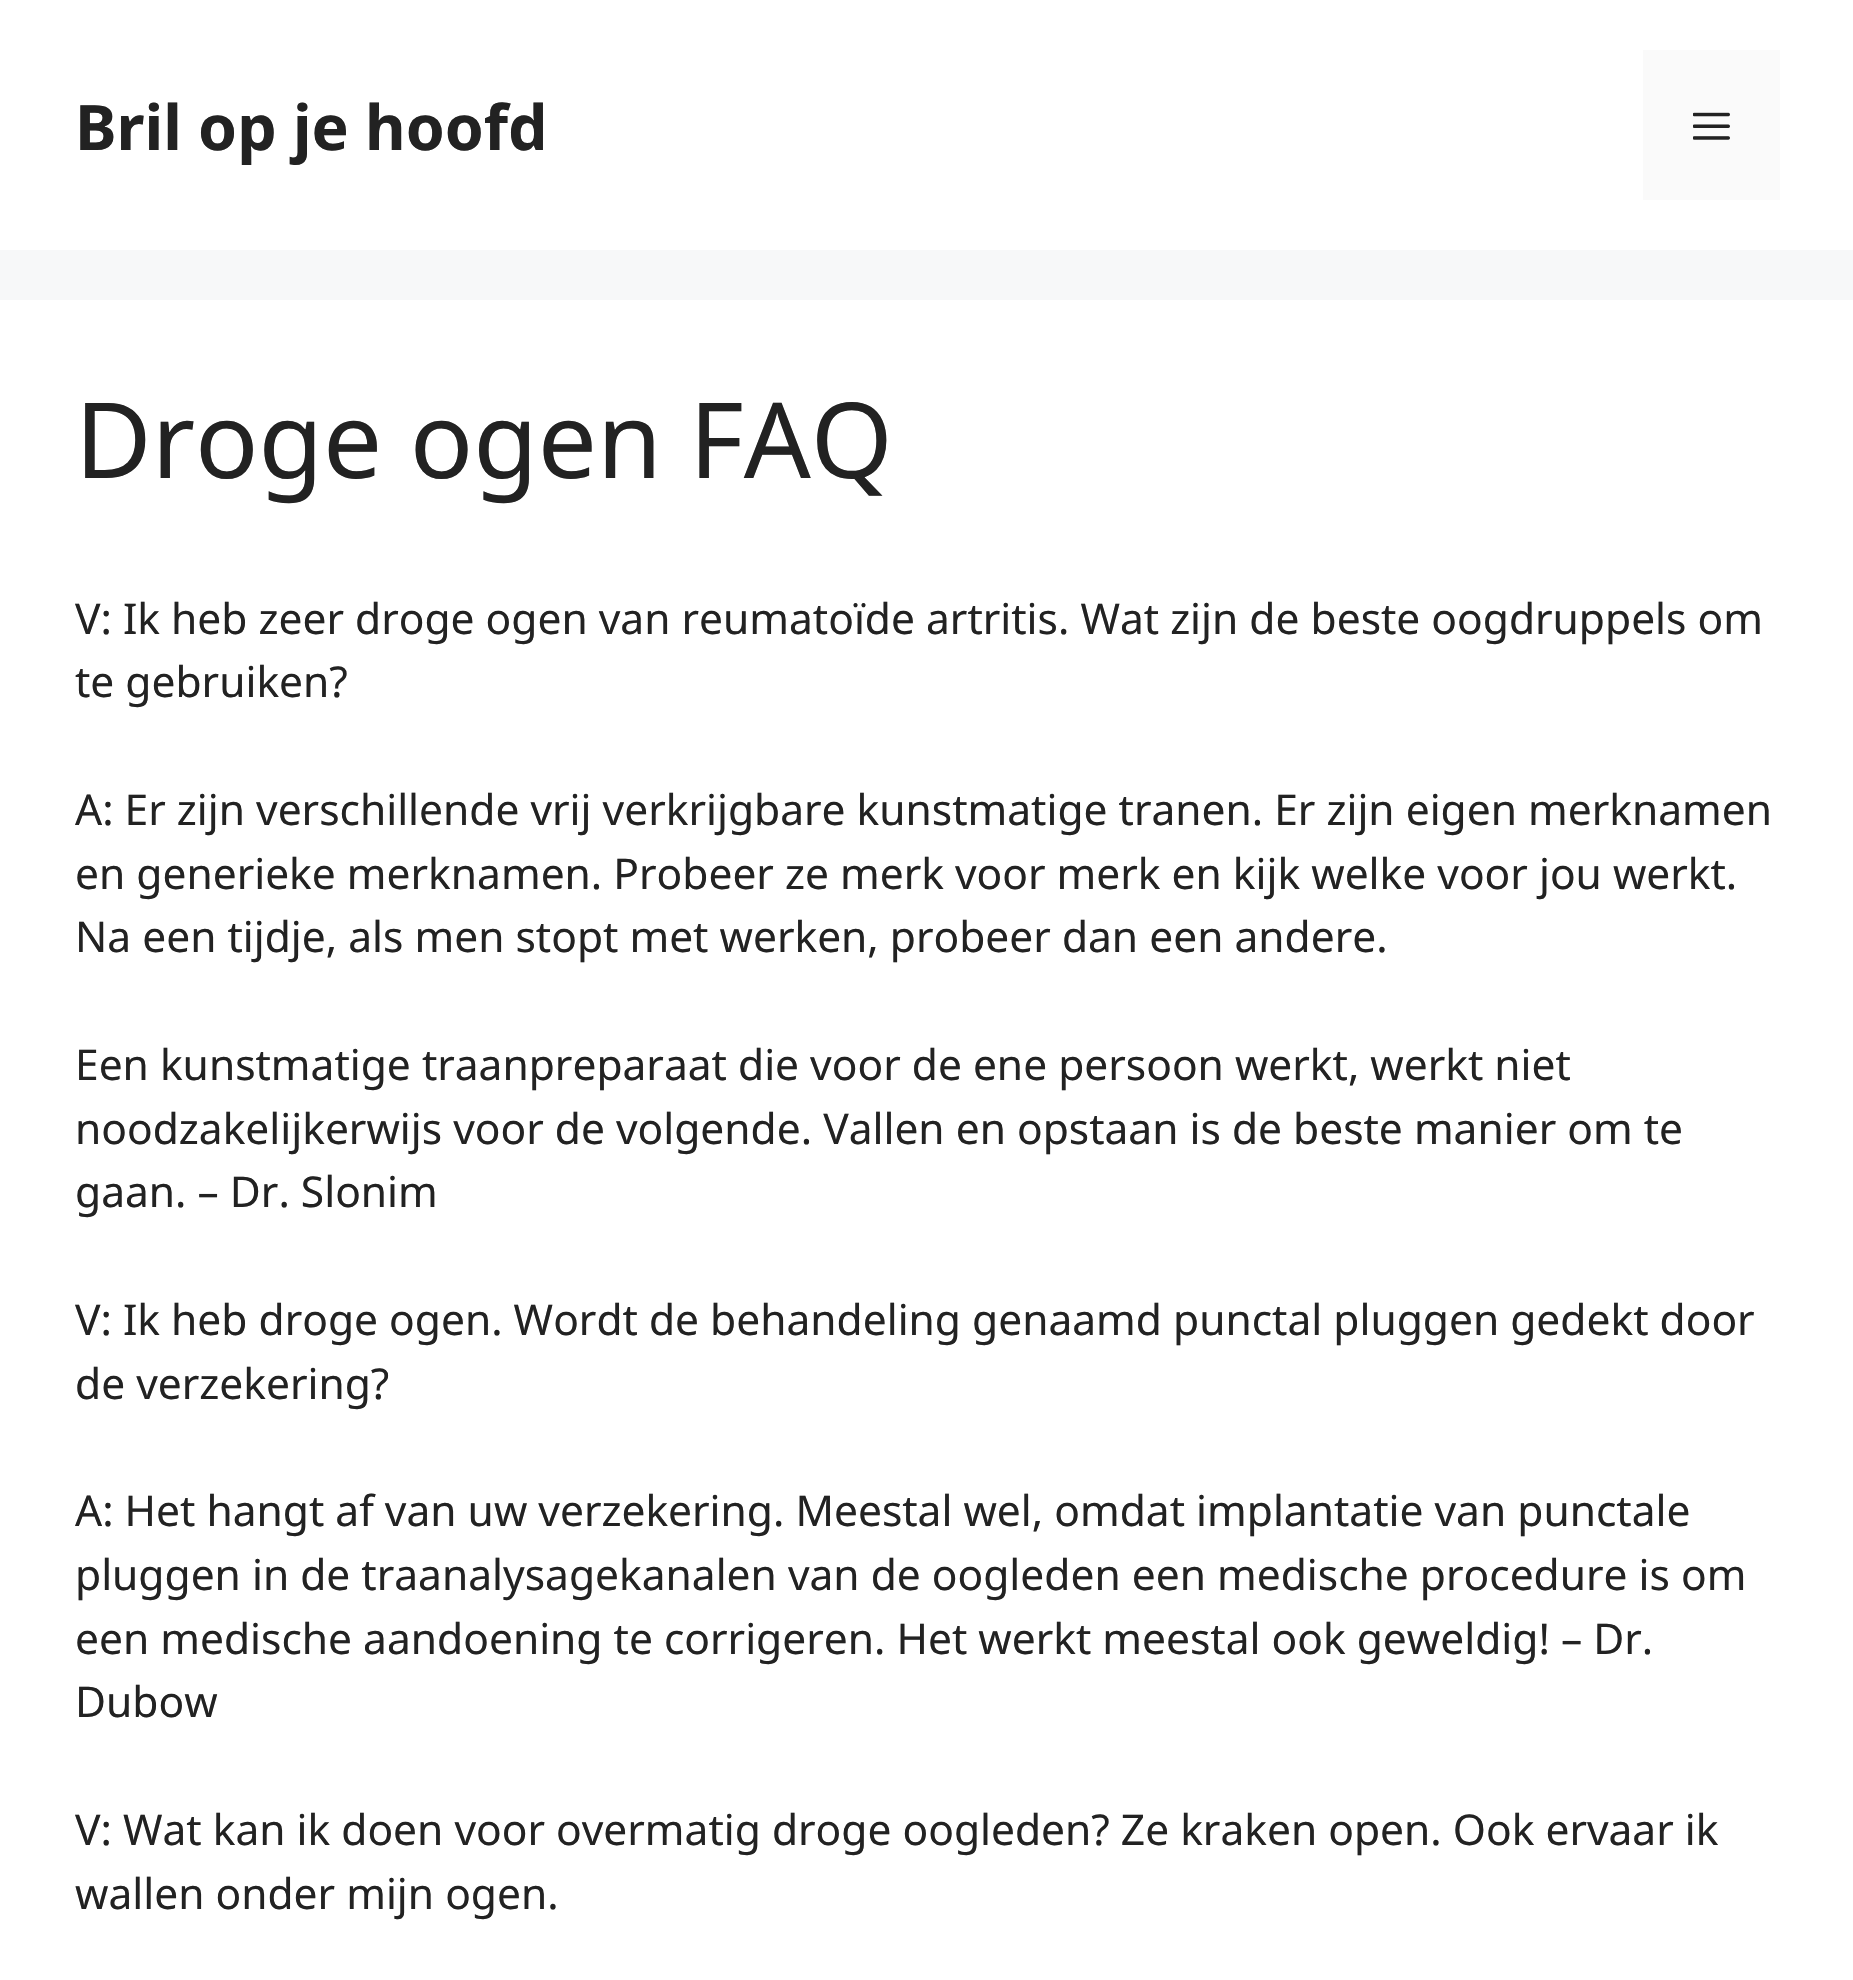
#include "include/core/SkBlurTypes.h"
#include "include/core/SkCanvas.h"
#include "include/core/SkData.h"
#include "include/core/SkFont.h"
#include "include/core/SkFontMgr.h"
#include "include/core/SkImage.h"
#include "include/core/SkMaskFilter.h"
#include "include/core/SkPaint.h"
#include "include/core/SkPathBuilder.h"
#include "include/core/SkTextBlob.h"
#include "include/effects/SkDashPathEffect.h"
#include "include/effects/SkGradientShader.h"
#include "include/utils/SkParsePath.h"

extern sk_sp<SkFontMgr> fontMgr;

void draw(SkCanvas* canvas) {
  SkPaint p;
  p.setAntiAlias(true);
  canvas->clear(SkColorSetRGB(247, 248, 249));
  p.setColor(SK_ColorWHITE);
  canvas->drawRect(SkRect::MakeLTRB(0, 0, 1853, 250), p);
  p.setColor(SkColorSetRGB(250, 250, 250));
  canvas->drawRect(SkRect::MakeLTRB(1643, 50, 1780, 200), p);
  canvas->drawImageRect(SkImages::DeferredFromEncodedData(SkData::MakeFromFileName("images/1.png")), SkRect::MakeLTRB(1693, 112, 1730, 140), SkSamplingOptions());
  p.setColor(SK_ColorWHITE);
  canvas->drawRect(SkRect::MakeLTRB(0, 300, 1853, 1980), p);
  SkFont font1(fontMgr->matchFamilyStyle("Noto Sans", SkFontStyle::Bold()), 62.5f);
  font1.setSubpixel(true);
  p.setColor(SkColorSetRGB(34, 34, 34));
  canvas->drawString("Bril op je hoofd", 75, 150, font1, p);
  SkFont font2(fontMgr->matchFamilyStyle("Noto Sans", SkFontStyle::Normal()), 105);
  font2.setSubpixel(true);
  canvas->drawString("Droge ogen FAQ", 75, 478, font2, p);
  SkFont font3(fontMgr->matchFamilyStyle("Noto Sans", SkFontStyle::Normal()), 42.5f);
  font3.setSubpixel(true);
  canvas->drawString("V: Ik heb zeer droge ogen van reumatoïde artritis. Wat zijn de beste oogdruppels om", 75, 634, font3, p);
  canvas->drawString("te gebruiken?", 75, 697, font3, p);
  canvas->drawString("A: Er zijn verschillende vrij verkrijgbare kunstmatige tranen. Er zijn eigen merknamen", 75, 825, font3, p);
  canvas->drawString("en generieke merknamen. Probeer ze merk voor merk en kijk welke voor jou werkt.", 75, 889, font3, p);
  canvas->drawString("Na een tijdje, als men stopt met werken, probeer dan een andere.", 75, 952, font3, p);
  canvas->drawString("Een kunstmatige traanpreparaat die voor de ene persoon werkt, werkt niet", 75, 1080, font3, p);
  canvas->drawString("noodzakelijkerwijs voor de volgende. Vallen en opstaan is de beste manier om te", 75, 1144, font3, p);
  canvas->drawString("gaan. – Dr. Slonim", 75, 1207, font3, p);
  canvas->drawString("V: Ik heb droge ogen. Wordt de behandeling genaamd punctal pluggen gedekt door", 75, 1335, font3, p);
  canvas->drawString("de verzekering?", 75, 1399, font3, p);
  canvas->drawString("A: Het hangt af van uw verzekering. Meestal wel, omdat implantatie van punctale", 75, 1526, font3, p);
  canvas->drawString("pluggen in de traanalysagekanalen van de oogleden een medische procedure is om", 75, 1590, font3, p);
  canvas->drawString("een medische aandoening te corrigeren. Het werkt meestal ook geweldig! – Dr.", 75, 1654, font3, p);
  canvas->drawString("Dubow", 75, 1717, font3, p);
  canvas->drawString("V: Wat kan ik doen voor overmatig droge oogleden? Ze kraken open. Ook ervaar ik", 75, 1845, font3, p);
  canvas->drawString("wallen onder mijn ogen.", 75, 1909, font3, p);
}
